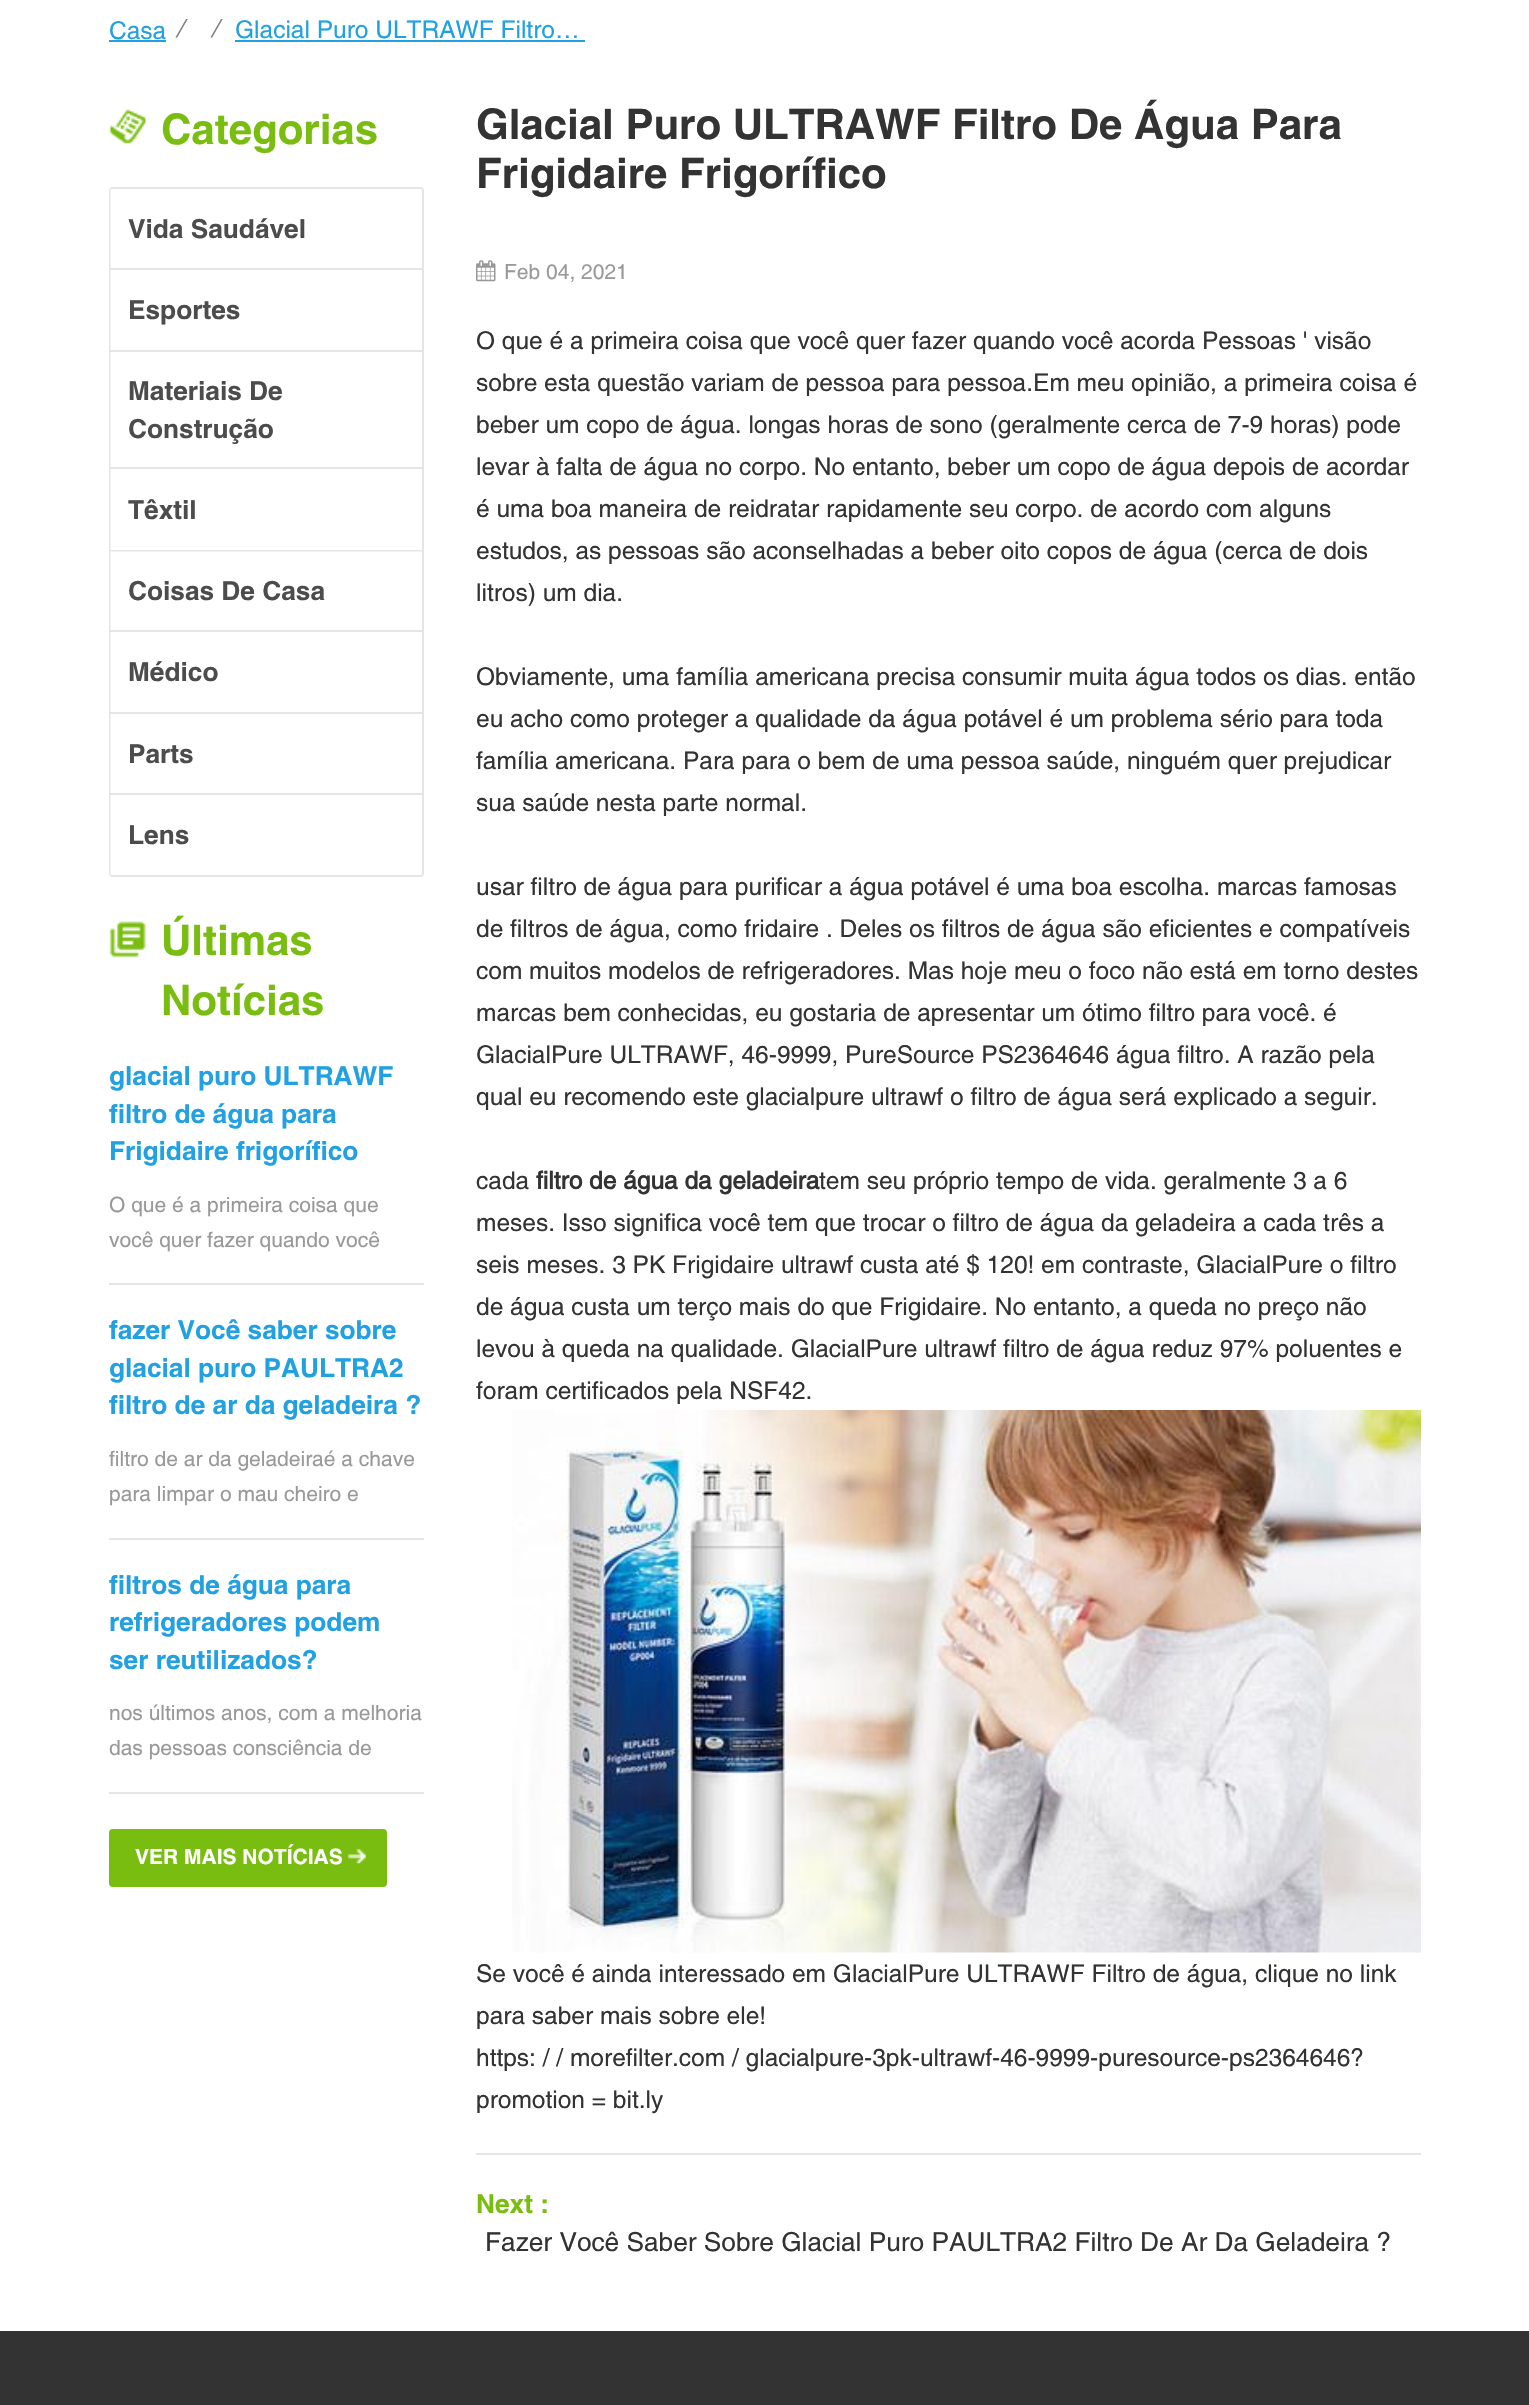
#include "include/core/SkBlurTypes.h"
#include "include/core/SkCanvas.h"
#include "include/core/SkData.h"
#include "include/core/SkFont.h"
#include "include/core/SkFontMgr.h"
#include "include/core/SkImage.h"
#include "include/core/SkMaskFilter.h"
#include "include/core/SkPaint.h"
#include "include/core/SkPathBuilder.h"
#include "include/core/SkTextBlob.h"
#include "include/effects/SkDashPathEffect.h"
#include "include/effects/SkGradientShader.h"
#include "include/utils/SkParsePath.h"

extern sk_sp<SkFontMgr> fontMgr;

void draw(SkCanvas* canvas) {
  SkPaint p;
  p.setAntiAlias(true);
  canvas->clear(SK_ColorWHITE);
  p.setColor(SkColorSetRGB(33, 161, 225));
  canvas->drawRect(SkRect::MakeLTRB(109, 40, 166, 42), p);
  canvas->drawRect(SkRect::MakeLTRB(235, 40, 585, 42), p);
  canvas->drawImageRect(SkImages::DeferredFromEncodedData(SkData::MakeFromFileName("images/1.png")), SkRect::MakeLTRB(109, 109, 146, 144), SkSamplingOptions());
  p.setStyle(SkPaint::kStroke_Style);
  p.setStrokeWidth(2);
  p.setColor(SkColorSetRGB(229, 229, 229));
  canvas->drawRoundRect(SkRect::MakeLTRB(110, 188, 423, 876), 3, 3, p);
  p.setStyle(SkPaint::kFill_Style);
  p.setColor(SkColorSetARGB(128, 255, 255, 255));
  canvas->drawRect(SkRect::MakeLTRB(110, 189, 422, 268), p);
  p.setColor(SkColorSetRGB(229, 229, 229));
  canvas->drawRect(SkRect::MakeLTRB(110, 268, 422, 270), p);
  p.setColor(SkColorSetARGB(128, 255, 255, 255));
  canvas->drawRect(SkRect::MakeLTRB(110, 270, 111, 350), p);
  p.setColor(SkColorSetRGB(229, 229, 229));
  canvas->drawRect(SkRect::MakeLTRB(110, 350, 422, 352), p);
  p.setColor(SkColorSetARGB(128, 255, 255, 255));
  canvas->drawRect(SkRect::MakeLTRB(110, 352, 111, 467), p);
  p.setColor(SkColorSetRGB(229, 229, 229));
  canvas->drawRect(SkRect::MakeLTRB(110, 467, 422, 469), p);
  p.setColor(SkColorSetARGB(128, 255, 255, 255));
  canvas->drawRect(SkRect::MakeLTRB(110, 469, 111, 550), p);
  p.setColor(SkColorSetRGB(229, 229, 229));
  canvas->drawRect(SkRect::MakeLTRB(110, 550, 422, 552), p);
  p.setColor(SkColorSetARGB(128, 255, 255, 255));
  canvas->drawRect(SkRect::MakeLTRB(110, 551, 422, 630), p);
  p.setColor(SkColorSetRGB(229, 229, 229));
  canvas->drawRect(SkRect::MakeLTRB(110, 630, 422, 632), p);
  p.setColor(SkColorSetARGB(128, 255, 255, 255));
  canvas->drawRect(SkRect::MakeLTRB(110, 632, 111, 712), p);
  p.setColor(SkColorSetRGB(229, 229, 229));
  canvas->drawRect(SkRect::MakeLTRB(110, 712, 422, 714), p);
  p.setColor(SkColorSetARGB(128, 255, 255, 255));
  canvas->drawRect(SkRect::MakeLTRB(110, 714, 111, 793), p);
  p.setColor(SkColorSetRGB(229, 229, 229));
  canvas->drawRect(SkRect::MakeLTRB(110, 793, 422, 795), p);
  p.setColor(SkColorSetARGB(128, 255, 255, 255));
  canvas->drawRect(SkRect::MakeLTRB(110, 795, 422, 875), p);
  canvas->drawImageRect(SkImages::DeferredFromEncodedData(SkData::MakeFromFileName("images/2.png")), SkRect::MakeLTRB(109, 921, 146, 958), SkSamplingOptions());
  p.setColor(SkColorSetRGB(229, 229, 229));
  canvas->drawRect(SkRect::MakeLTRB(109, 1283, 424, 1285), p);
  canvas->drawRect(SkRect::MakeLTRB(109, 1538, 424, 1540), p);
  canvas->drawRect(SkRect::MakeLTRB(109, 1792, 424, 1794), p);
  p.setColor(SkColorSetRGB(121, 189, 16));
  canvas->drawRoundRect(SkRect::MakeLTRB(109, 1829, 387, 1887), 4, 4, p);
  canvas->drawImageRect(SkImages::DeferredFromEncodedData(SkData::MakeFromFileName("images/3.png")), SkRect::MakeLTRB(348, 1849, 366, 1864), SkSamplingOptions());
  canvas->drawImageRect(SkImages::DeferredFromEncodedData(SkData::MakeFromFileName("images/4.png")), SkRect::MakeLTRB(476, 260, 496, 282), SkSamplingOptions());
  canvas->drawImageRect(SkImages::DeferredFromEncodedData(SkData::MakeFromFileName("images/5.png")), SkRect::MakeLTRB(512, 1410, 1421, 1953), SkSamplingOptions());
  p.setColor(SkColorSetRGB(229, 229, 229));
  canvas->drawRect(SkRect::MakeLTRB(476, 2153, 1421, 2155), p);
  p.setColor(SkColorSetRGB(51, 51, 51));
  canvas->drawRect(SkRect::MakeLTRB(0, 2331, 1529, 2405), p);
  SkFont font1(fontMgr->matchFamilyStyle("Helvetica", SkFontStyle::Normal()), 24.5f);
  font1.setSubpixel(true);
  p.setColor(SkColorSetRGB(33, 161, 225));
  canvas->drawString("Casa", 109, 39, font1, p);
  SkFont font2(fontMgr->matchFamilyStyle("Helvetica", SkFontStyle::Italic()), 24.5f);
  font2.setSubpixel(true);
  p.setColor(SkColorSetRGB(128, 128, 128));
  canvas->drawString("/", 176, 37, font2, p);
  canvas->drawString("/", 211, 37, font2, p);
  p.setColor(SkColorSetRGB(33, 161, 225));
  canvas->drawString("Glacial Puro ULTRAWF Filtro…", 235, 38, font1, p);
  SkFont font3(fontMgr->matchFamilyStyle("Helvetica", SkFontStyle::Bold()), 42);
  font3.setSubpixel(true);
  p.setColor(SkColorSetRGB(121, 189, 16));
  canvas->drawString("Categorias", 161, 144, font3, p);
  SkFont font4(fontMgr->matchFamilyStyle("Helvetica", SkFontStyle::Bold()), 26.25f);
  font4.setSubpixel(true);
  p.setColor(SkColorSetRGB(76, 76, 76));
  canvas->drawString("Vida Saudável", 128, 238, font4, p);
  canvas->drawString("Esportes", 128, 319, font4, p);
  canvas->drawString("Materiais De", 128, 400, font4, p);
  canvas->drawString("Construção", 128, 438, font4, p);
  canvas->drawString("Têxtil", 128, 519, font4, p);
  canvas->drawString("Coisas De Casa", 128, 600, font4, p);
  canvas->drawString("Médico", 128, 681, font4, p);
  canvas->drawString("Parts", 128, 763, font4, p);
  canvas->drawString("Lens", 128, 844, font4, p);
  p.setColor(SkColorSetRGB(121, 189, 16));
  canvas->drawString("Últimas", 161, 955, font3, p);
  canvas->drawString("Notícias", 161, 1015, font3, p);
  p.setColor(SkColorSetRGB(33, 161, 225));
  canvas->drawString("glacial puro ULTRAWF", 109, 1085, font4, p);
  canvas->save();
  canvas->clipRect(SkRect::MakeLTRB(109, 1057, 424, 1887));
  canvas->drawString("filtro de água para", 109, 1123, font4, p);
  canvas->restore();
  canvas->drawString("Frigidaire frigorífico", 109, 1160, font4, p);
  SkFont font5(fontMgr->matchFamilyStyle("Helvetica", SkFontStyle::Normal()), 21);
  font5.setSubpixel(true);
  p.setColor(SkColorSetRGB(153, 153, 153));
  canvas->drawString("O que é a primeira coisa que", 109, 1212, font5, p);
  canvas->drawString("você quer fazer quando você", 109, 1247, font5, p);
  canvas->save();
  canvas->clipRect(SkRect::MakeLTRB(109, 1057, 424, 1887));
  p.setColor(SkColorSetRGB(33, 161, 225));
  canvas->drawString("fazer Você saber sobre", 109, 1339, font4, p);
  canvas->restore();
  canvas->drawString("glacial puro PAULTRA2", 109, 1377, font4, p);
  canvas->save();
  canvas->clipRect(SkRect::MakeLTRB(109, 1057, 424, 1887));
  canvas->drawString("filtro de ar da geladeira ?", 109, 1414, font4, p);
  canvas->restore();
  p.setColor(SkColorSetRGB(153, 153, 153));
  canvas->drawString("filtro de ar da geladeiraé a chave", 109, 1466, font5, p);
  canvas->drawString("para limpar o mau cheiro e", 109, 1501, font5, p);
  canvas->save();
  canvas->clipRect(SkRect::MakeLTRB(109, 1057, 424, 1887));
  p.setColor(SkColorSetRGB(33, 161, 225));
  canvas->drawString("filtros de água para", 109, 1594, font4, p);
  canvas->restore();
  canvas->drawString("refrigeradores podem", 109, 1631, font4, p);
  canvas->drawString("ser reutilizados?", 109, 1669, font4, p);
  p.setColor(SkColorSetRGB(153, 153, 153));
  canvas->drawString("nos últimos anos, com a melhoria", 109, 1720, font5, p);
  canvas->drawString("das pessoas consciência de", 109, 1755, font5, p);
  SkFont font6(fontMgr->matchFamilyStyle("Helvetica", SkFontStyle::Bold()), 21);
  font6.setSubpixel(true);
  p.setColor(SK_ColorWHITE);
  canvas->drawString("VER MAIS NOTÍCIAS", 135, 1864, font6, p);
  p.setColor(SkColorSetRGB(51, 51, 51));
  canvas->drawString("Glacial Puro ULTRAWF Filtro De Água Para", 476, 139, font3, p);
  canvas->drawString("Frigidaire Frigorífico", 476, 188, font3, p);
  p.setColor(SkColorSetRGB(153, 153, 153));
  canvas->drawString("Feb 04, 2021", 504, 279, font5, p);
  p.setColor(SkColorSetRGB(51, 51, 51));
  canvas->drawString("O que é a primeira coisa que você quer fazer quando você acorda Pessoas ' visão", 476, 349, font1, p);
  canvas->drawString("sobre esta questão variam de pessoa para pessoa.Em meu opinião, a primeira coisa é", 476, 391, font1, p);
  canvas->drawString("beber um copo de água. longas horas de sono (geralmente cerca de 7-9 horas) pode", 476, 433, font1, p);
  canvas->drawString("levar à falta de água no corpo. No entanto, beber um copo de água depois de acordar", 476, 475, font1, p);
  canvas->drawString("é uma boa maneira de reidratar rapidamente seu corpo. de acordo com alguns", 476, 517, font1, p);
  canvas->drawString("estudos, as pessoas são aconselhadas a beber oito copos de água (cerca de dois", 476, 559, font1, p);
  canvas->drawString("litros) um dia.", 476, 601, font1, p);
  canvas->drawString("Obviamente, uma família americana precisa consumir muita água todos os dias. então", 476, 685, font1, p);
  canvas->drawString("eu acho como proteger a qualidade da água potável é um problema sério para toda", 476, 727, font1, p);
  canvas->drawString("família americana. Para para o bem de uma pessoa saúde, ninguém quer prejudicar", 476, 769, font1, p);
  canvas->drawString("sua saúde nesta parte normal.", 476, 811, font1, p);
  canvas->drawString("usar filtro de água para purificar a água potável é uma boa escolha. marcas famosas", 476, 895, font1, p);
  canvas->drawString("de filtros de água, como fridaire . Deles os filtros de água são eficientes e compatíveis", 476, 937, font1, p);
  canvas->drawString("com muitos modelos de refrigeradores. Mas hoje meu o foco não está em torno destes", 476, 979, font1, p);
  canvas->drawString("marcas bem conhecidas, eu gostaria de apresentar um ótimo filtro para você. é", 476, 1021, font1, p);
  canvas->drawString("GlacialPure ULTRAWF, 46-9999, PureSource PS2364646 água filtro. A razão pela", 476, 1063, font1, p);
  canvas->drawString("qual eu recomendo este glacialpure ultrawf o filtro de água será explicado a seguir.", 476, 1105, font1, p);
  canvas->drawString("cada", 476, 1189, font1, p);
  SkFont font7(fontMgr->matchFamilyStyle("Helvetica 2", SkFontStyle::Bold()), 24.5f);
  font7.setSubpixel(true);
  canvas->drawString("filtro de água da geladeira", 536, 1189, font7, p);
  canvas->drawString("tem seu próprio tempo de vida. geralmente 3 a 6", 819, 1189, font1, p);
  canvas->drawString("meses. Isso significa você tem que trocar o filtro de água da geladeira a cada três a", 476, 1231, font1, p);
  canvas->drawString("seis meses. 3 PK Frigidaire ultrawf custa até $ 120! em contraste, GlacialPure o filtro", 476, 1273, font1, p);
  canvas->drawString("de água custa um terço mais do que Frigidaire. No entanto, a queda no preço não", 476, 1315, font1, p);
  canvas->drawString("levou à queda na qualidade. GlacialPure ultrawf filtro de água reduz 97% poluentes e", 476, 1357, font1, p);
  canvas->drawString("foram certificados pela NSF42.", 476, 1399, font1, p);
  canvas->drawString("Se você é ainda interessado em GlacialPure ULTRAWF Filtro de água, clique no link", 476, 1982, font1, p);
  canvas->drawString("para saber mais sobre ele!", 476, 2024, font1, p);
  canvas->drawString("https: / / morefilter.com / glacialpure-3pk-ultrawf-46-9999-puresource-ps2364646?", 476, 2066, font1, p);
  canvas->drawString("promotion = bit.ly", 476, 2108, font1, p);
  p.setColor(SkColorSetRGB(121, 189, 16));
  canvas->drawString("Next :", 476, 2213, font4, p);
  SkFont font8(fontMgr->matchFamilyStyle("Helvetica", SkFontStyle::Normal()), 26.25f);
  font8.setSubpixel(true);
  p.setColor(SkColorSetRGB(51, 51, 51));
  canvas->drawString("Fazer Você Saber Sobre Glacial Puro PAULTRA2 Filtro De Ar Da Geladeira ?", 485, 2251, font8, p);
}
